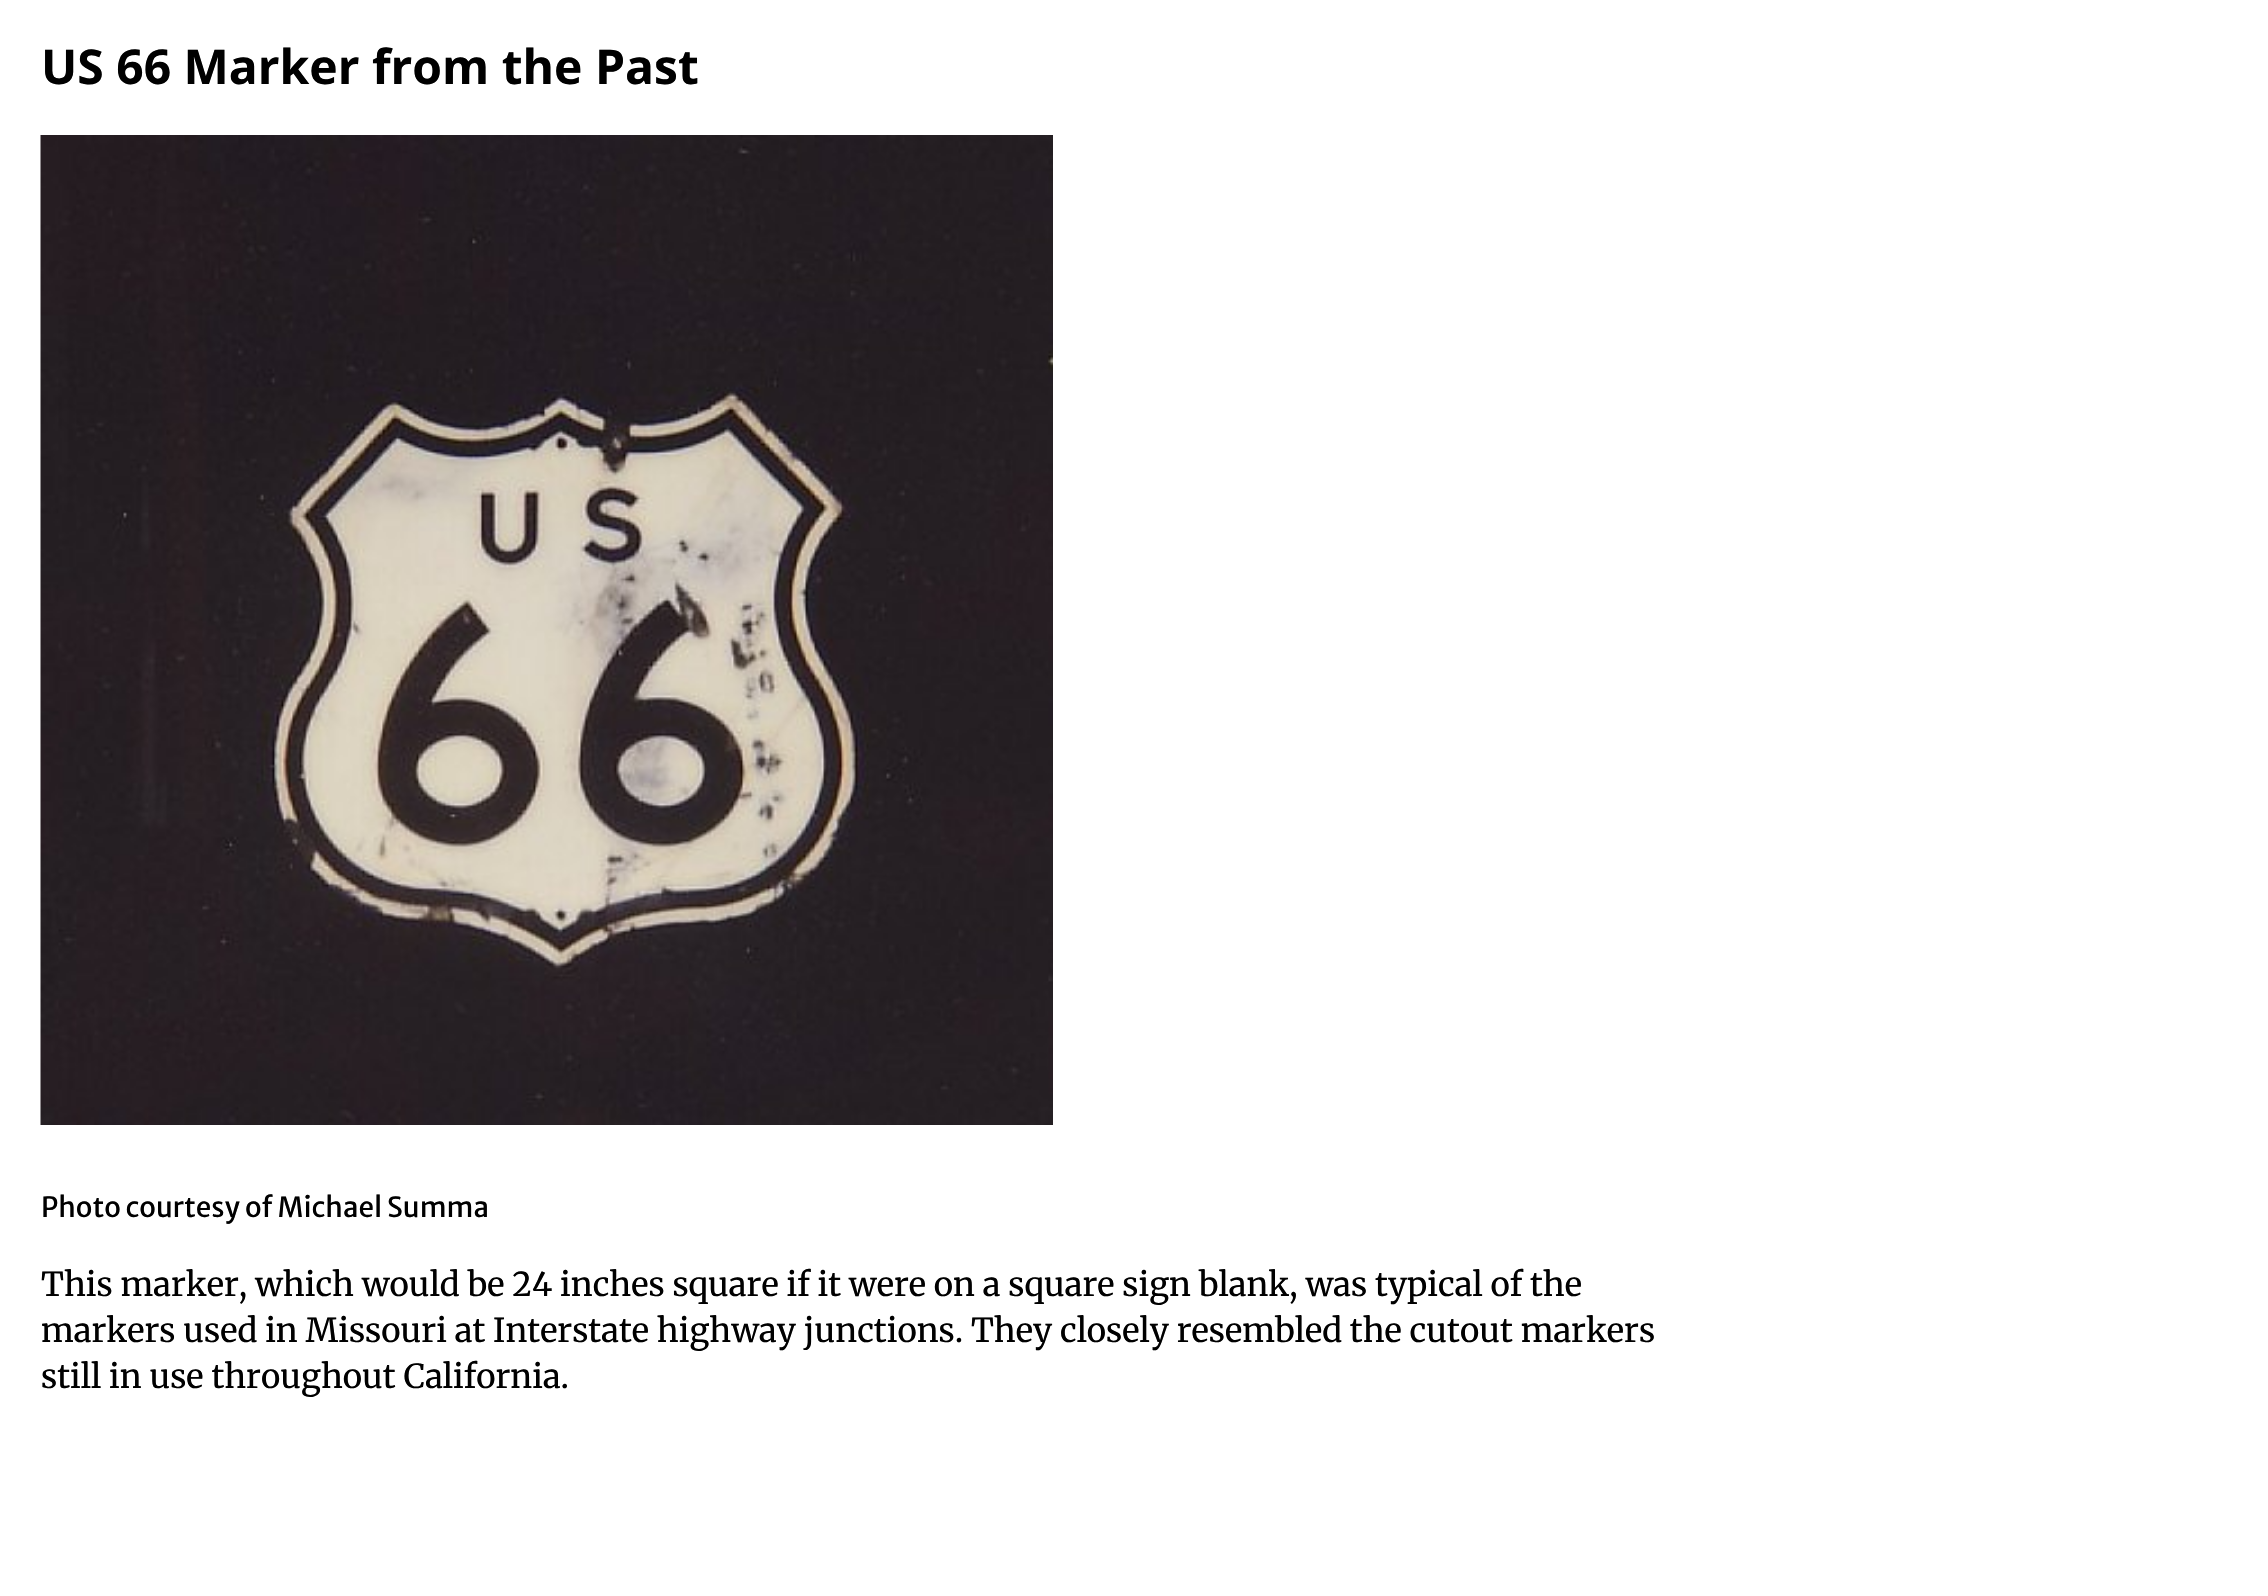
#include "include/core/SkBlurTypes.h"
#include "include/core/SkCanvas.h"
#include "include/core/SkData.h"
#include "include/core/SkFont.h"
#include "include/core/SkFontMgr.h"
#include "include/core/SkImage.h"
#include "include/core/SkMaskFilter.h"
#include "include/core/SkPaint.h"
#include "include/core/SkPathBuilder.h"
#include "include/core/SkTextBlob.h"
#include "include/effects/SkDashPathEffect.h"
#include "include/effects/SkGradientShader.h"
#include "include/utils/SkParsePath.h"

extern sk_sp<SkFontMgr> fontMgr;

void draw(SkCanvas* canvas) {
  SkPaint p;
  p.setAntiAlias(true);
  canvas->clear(SK_ColorWHITE);
  canvas->drawImageRect(SkImages::DeferredFromEncodedData(SkData::MakeFromFileName("images/1.png")), SkRect::MakeLTRB(40, 135, 1053, 1125), SkSamplingOptions());
  SkFont font1(fontMgr->matchFamilyStyle("Open Sans", SkFontStyle::Bold()), 48);
  font1.setSubpixel(true);
  p.setColor(SK_ColorBLACK);
  canvas->drawString("US 66 Marker from the Past", 41, 84, font1, p);
  SkFont font2(fontMgr->matchFamilyStyle("Merriweather Sans", SkFontStyle::Normal()), 27.75f);
  font2.setSubpixel(true);
  canvas->drawString("Photo courtesy of Michael Summa", 41, 1217, font2, p);
  SkFont font3(fontMgr->matchFamilyStyle("Merriweather", SkFontStyle::Normal()), 33);
  font3.setSubpixel(true);
  canvas->drawString("This marker, which would be 24 inches square if it were on a square sign blank, was typical of the", 41, 1296, font3, p);
  canvas->drawString("markers used in Missouri at Interstate highway junctions. They closely resembled the cutout markers", 41, 1342, font3, p);
  canvas->drawString("still in use throughout California.", 41, 1388, font3, p);
}
